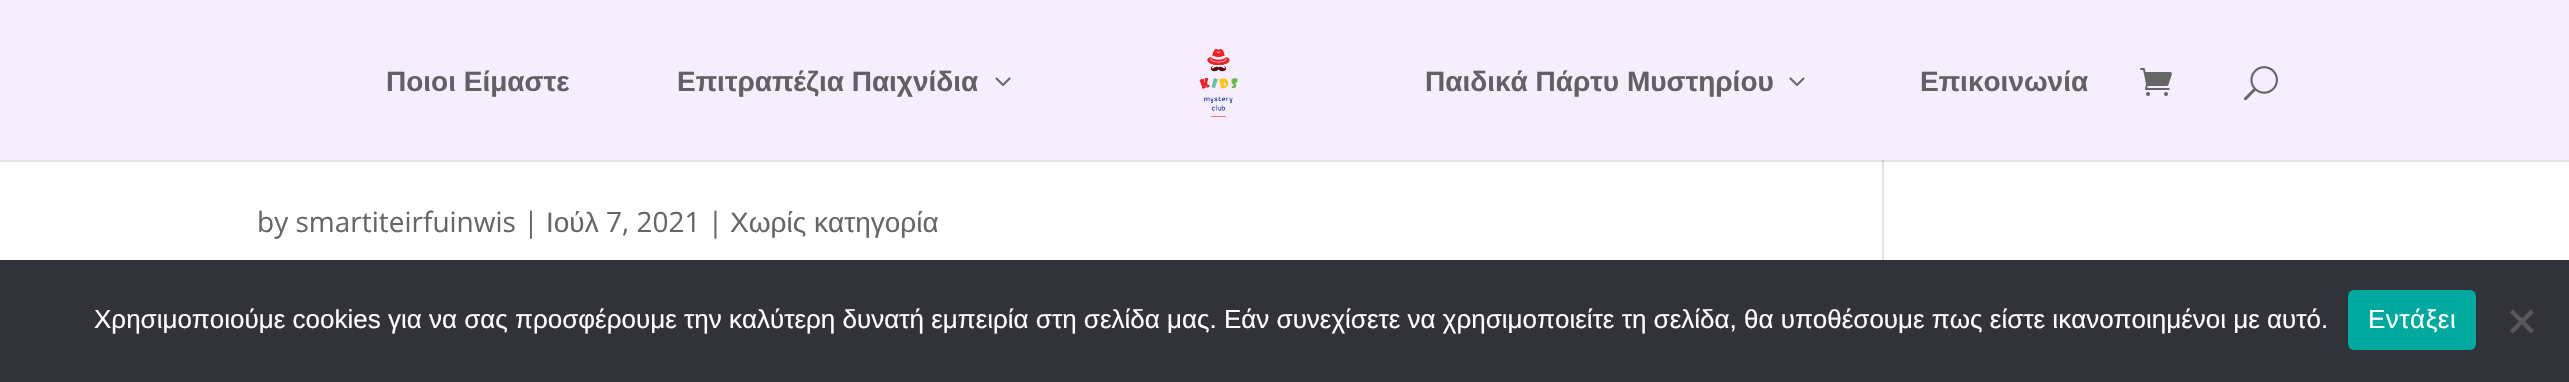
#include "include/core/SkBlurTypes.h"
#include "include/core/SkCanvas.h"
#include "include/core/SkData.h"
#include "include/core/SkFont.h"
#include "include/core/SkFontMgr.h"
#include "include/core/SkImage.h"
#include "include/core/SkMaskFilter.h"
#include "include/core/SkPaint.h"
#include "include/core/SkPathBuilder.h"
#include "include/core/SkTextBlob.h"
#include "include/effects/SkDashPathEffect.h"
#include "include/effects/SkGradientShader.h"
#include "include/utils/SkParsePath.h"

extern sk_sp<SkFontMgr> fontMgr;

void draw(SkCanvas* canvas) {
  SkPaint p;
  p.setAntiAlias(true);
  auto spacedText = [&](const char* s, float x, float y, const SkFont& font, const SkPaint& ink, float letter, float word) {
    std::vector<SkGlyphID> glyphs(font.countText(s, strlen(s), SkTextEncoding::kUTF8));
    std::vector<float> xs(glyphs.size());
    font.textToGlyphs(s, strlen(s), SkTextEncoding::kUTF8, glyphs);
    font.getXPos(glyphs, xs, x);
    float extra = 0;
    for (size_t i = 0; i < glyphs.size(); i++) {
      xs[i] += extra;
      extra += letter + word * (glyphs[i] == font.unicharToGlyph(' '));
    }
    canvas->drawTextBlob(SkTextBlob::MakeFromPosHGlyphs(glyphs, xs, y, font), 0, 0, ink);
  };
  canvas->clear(SK_ColorWHITE);
  p.setColor(SkColorSetRGB(226, 226, 226));
  canvas->drawRect(SkRect::MakeLTRB(1882, 160, 1884, 260), p);
  p.setColor(SkColorSetARGB(26, 0, 0, 0));
  canvas->drawRect(SkRect::MakeLTRB(0, 160, 2569, 162), p);
  p.setColor(SkColorSetRGB(246, 237, 253));
  canvas->drawRect(SkRect::MakeLTRB(0, 0, 2569, 160), p);
  canvas->drawImageRect(SkImages::DeferredFromEncodedData(SkData::MakeFromFileName("images/1.png")), SkRect::MakeLTRB(995, 77, 1011, 86), SkSamplingOptions());
  canvas->drawImageRect(SkImages::DeferredFromEncodedData(SkData::MakeFromFileName("images/2.png")), SkRect::MakeLTRB(1199, 48, 1238, 117), SkSamplingOptions());
  canvas->drawImageRect(SkImages::DeferredFromEncodedData(SkData::MakeFromFileName("images/1.png")), SkRect::MakeLTRB(1789, 77, 1805, 86), SkSamplingOptions());
  canvas->drawImageRect(SkImages::DeferredFromEncodedData(SkData::MakeFromFileName("images/3.png")), SkRect::MakeLTRB(2140, 68, 2172, 96), SkSamplingOptions());
  canvas->drawImageRect(SkImages::DeferredFromEncodedData(SkData::MakeFromFileName("images/4.png")), SkRect::MakeLTRB(2243, 66, 2278, 101), SkSamplingOptions());
  p.setColor(SkColorSetRGB(50, 50, 58));
  canvas->drawRect(SkRect::MakeLTRB(0, 260, 2569, 382), p);
  p.setColor(SkColorSetRGB(0, 169, 157));
  canvas->drawRoundRect(SkRect::MakeLTRB(2348, 290, 2476, 350), 6, 6, p);
  p.setColor(SkColorSetRGB(89, 89, 93));
  canvas->drawPath(SkPathBuilder().moveTo(2531, 309.5f).lineTo(2534, 312.5f).lineTo(2513, 333.5f).lineTo(2510, 330.5f).close().detach(), p);
  canvas->drawPath(SkPathBuilder().moveTo(2510, 312.5f).lineTo(2513, 309.5f).lineTo(2534, 330.5f).lineTo(2531, 333.5f).close().detach(), p);
  SkFont font1(fontMgr->matchFamilyStyle("Liberation Sans", SkFontStyle::Bold()), 28);
  font1.setSubpixel(true);
  p.setColor(SkColorSetRGB(98, 95, 101));
  canvas->drawString("Ποιοι Είμαστε", 386, 91, font1, p);
  canvas->drawString("Επιτραπέζια Παιχνίδια", 677, 91, font1, p);
  canvas->drawString("Παιδικά Πάρτυ Μυστηρίου", 1425, 91, font1, p);
  canvas->drawString("Επικοινωνία", 1920, 91, font1, p);
  SkFont font2(fontMgr->matchFamilyStyle("Open Sans", SkFontStyle::Normal()), 28);
  font2.setSubpixel(true);
  p.setColor(SkColorSetRGB(102, 102, 102));
  canvas->drawString("by smartiteirfuinwis |", 257, 232, font2, p);
  SkFont font3(fontMgr->matchFamilyStyle("Liberation Sans", SkFontStyle::Normal()), 28);
  font3.setSubpixel(true);
  canvas->drawString("Ιούλ", 546, 232, font3, p);
  canvas->drawString("7, 2021 |", 606, 232, font2, p);
  canvas->drawString("Χωρίς κατηγορία", 730, 232, font3, p);
  SkFont font4(fontMgr->matchFamilyStyle("Liberation Sans", SkFontStyle::Normal()), 26);
  font4.setSubpixel(true);
  p.setColor(SK_ColorWHITE);
  canvas->drawString("Χρησιμοποιούμε cookies για να σας προσφέρουμε την καλύτερη δυνατή εμπειρία στη σελίδα μας. Εάν συνεχίσετε να χρησιμοποιείτε τη σελίδα, θα υποθέσουμε πως είστε ικανοποιημένοι με αυτό.", 94, 328, font4, p);
  spacedText("Εντάξει", 2368, 328, font4, p, 0.5f, 0);
}
